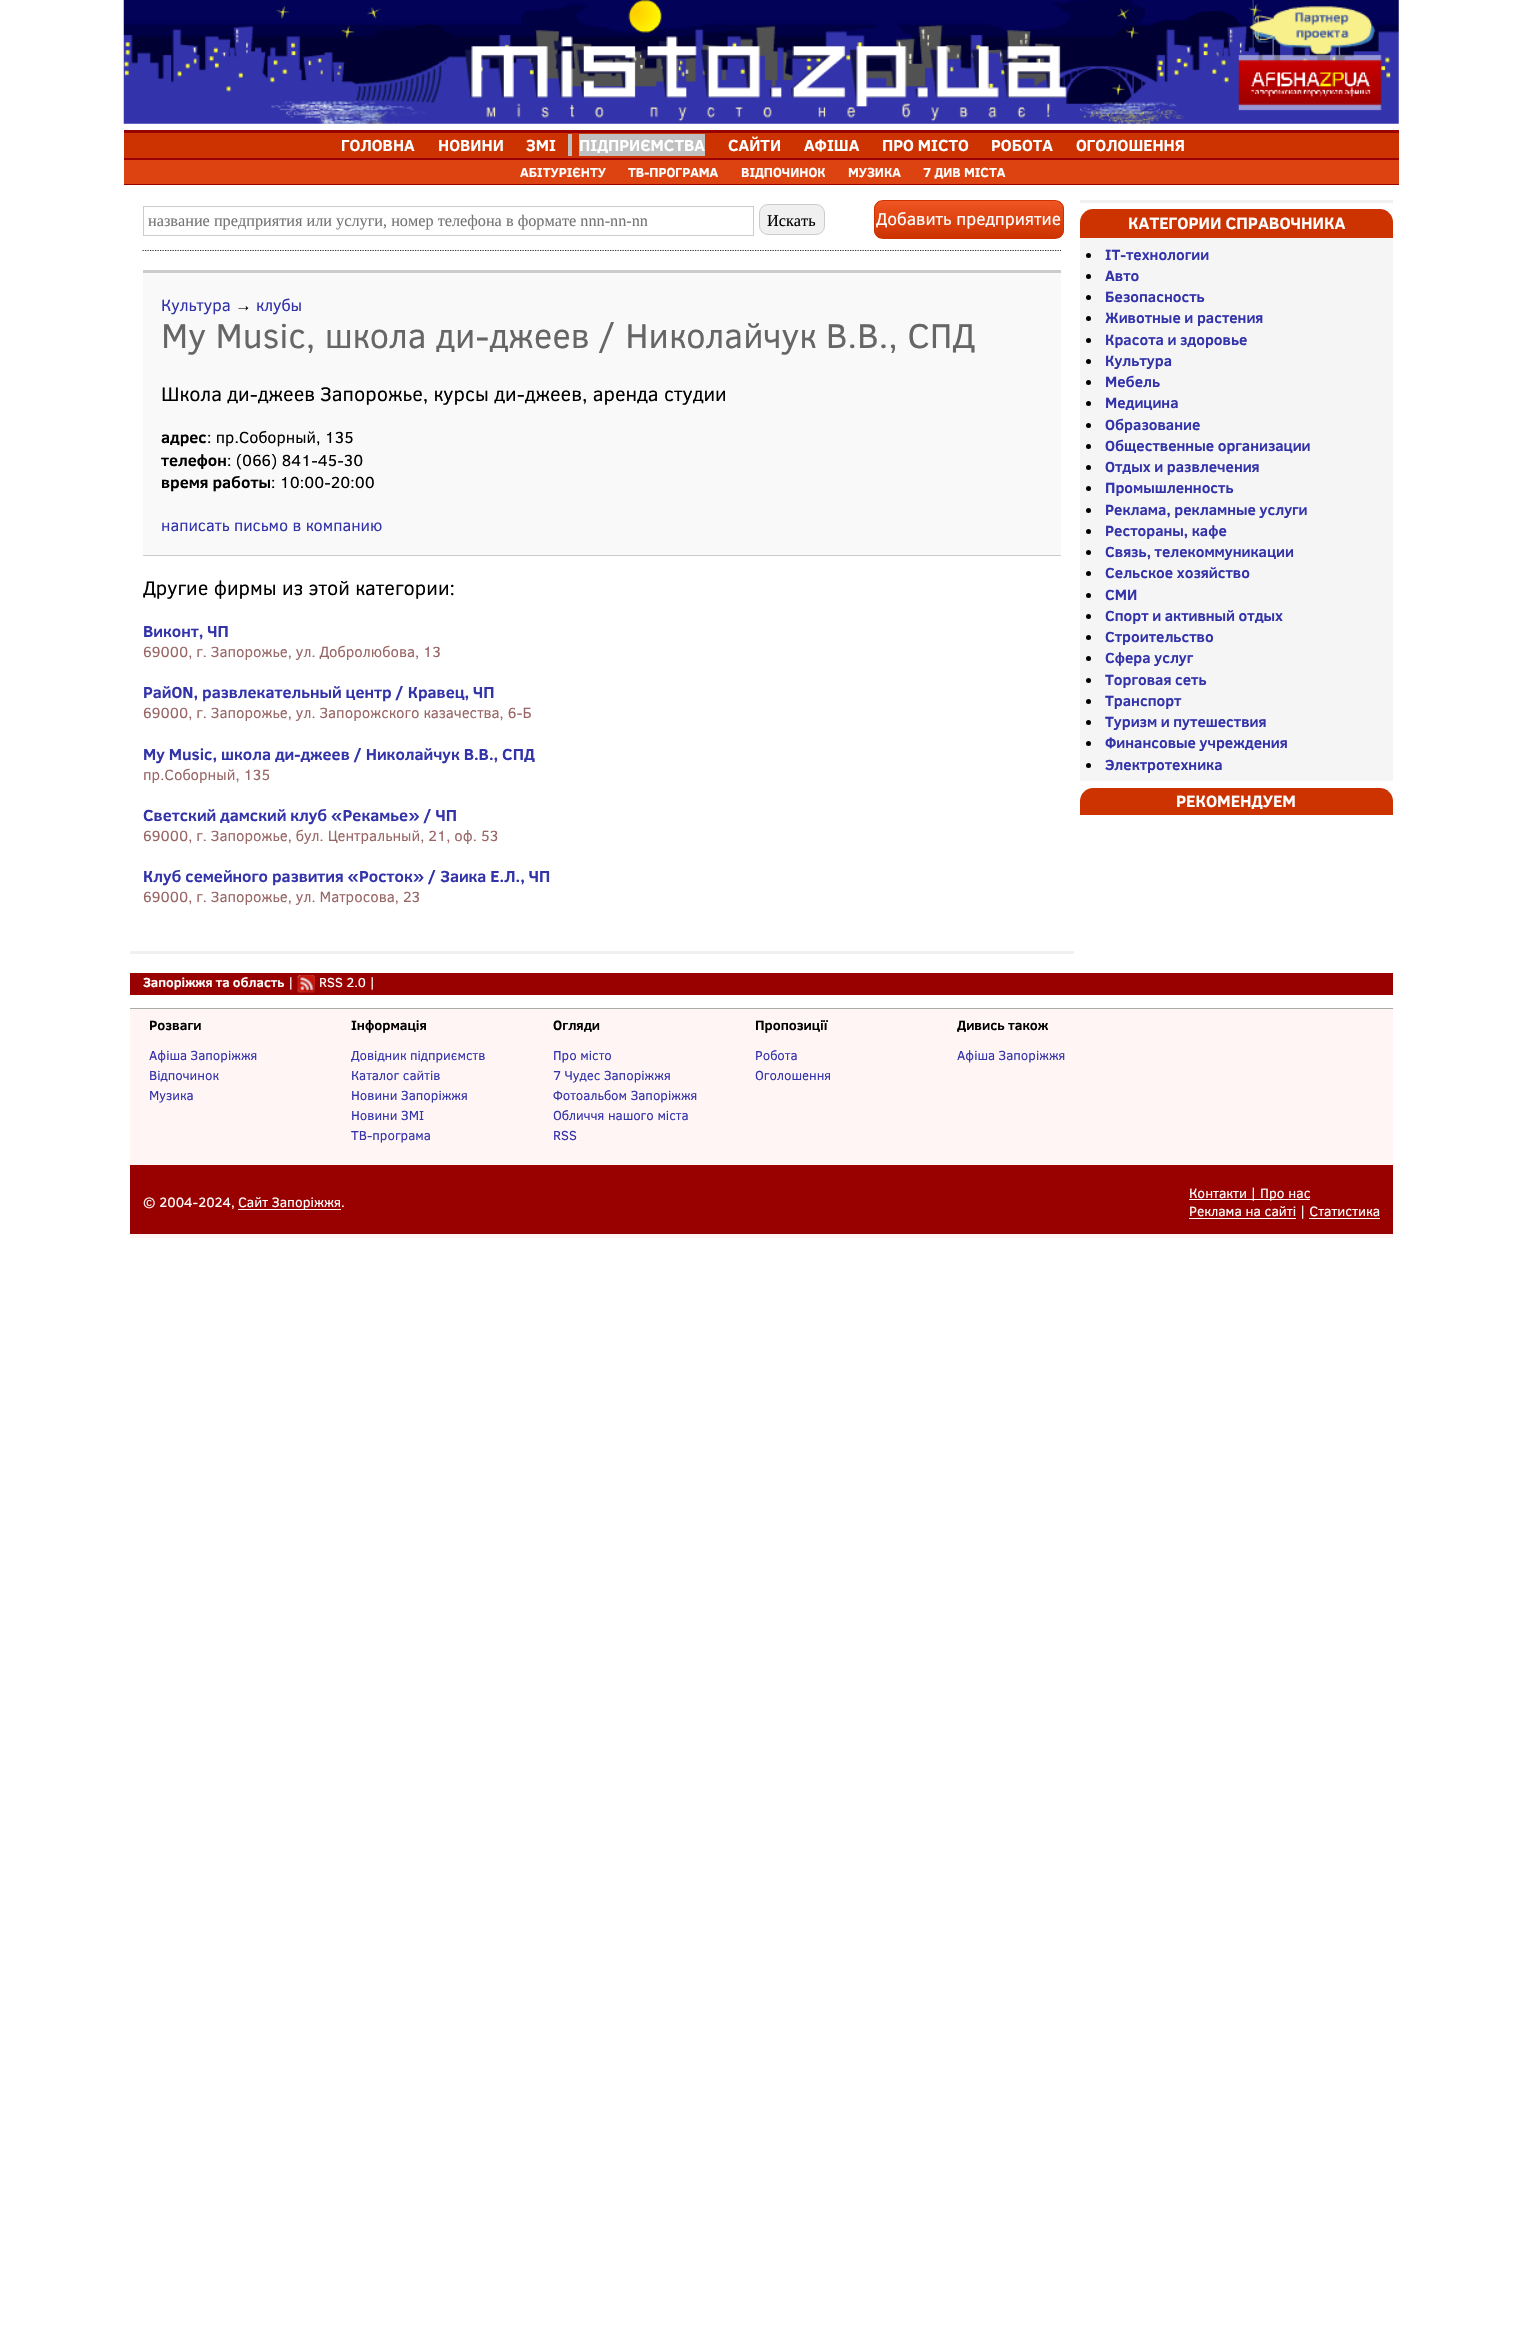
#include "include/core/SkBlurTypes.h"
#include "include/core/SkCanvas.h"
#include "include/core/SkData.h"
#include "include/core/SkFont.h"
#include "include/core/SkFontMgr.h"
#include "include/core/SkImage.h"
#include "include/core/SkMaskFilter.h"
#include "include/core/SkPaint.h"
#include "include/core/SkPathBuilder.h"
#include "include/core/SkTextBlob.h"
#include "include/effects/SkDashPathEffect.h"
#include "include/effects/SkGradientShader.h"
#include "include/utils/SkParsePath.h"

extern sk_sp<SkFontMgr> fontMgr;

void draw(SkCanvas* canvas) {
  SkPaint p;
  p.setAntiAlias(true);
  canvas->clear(SK_ColorWHITE);
  canvas->drawImageRect(SkImages::DeferredFromEncodedData(SkData::MakeFromFileName("images/1.png")), SkRect::MakeLTRB(123, 0, 1399, 124), SkSamplingOptions());
  p.setColor(SkColorSetRGB(204, 51, 0));
  canvas->drawRect(SkRect::MakeLTRB(124, 133, 1399, 158), p);
  p.setColor(SkColorSetRGB(153, 0, 0));
  canvas->drawRect(SkRect::MakeLTRB(124, 130, 1399, 133), p);
  canvas->drawRect(SkRect::MakeLTRB(124, 158, 1399, 160), p);
  p.setColor(SkColorSetRGB(192, 192, 192));
  canvas->drawRect(SkRect::MakeLTRB(568, 134, 572, 156), p);
  canvas->drawRect(SkRect::MakeLTRB(579, 134, 705, 156), p);
  p.setColor(SkColorSetRGB(220, 67, 16));
  canvas->drawRect(SkRect::MakeLTRB(124, 160, 1399, 184), p);
  p.setColor(SkColorSetRGB(153, 0, 0));
  canvas->drawRect(SkRect::MakeLTRB(124, 184, 1399, 185), p);
  p.setStyle(SkPaint::kStroke_Style);
  p.setStrokeWidth(1);
  p.setColor(SkColorSetRGB(204, 204, 204));
  canvas->drawRect(SkRect::MakeLTRB(143.5f, 206.5f, 753.5f, 235.5f), p);
  p.setStyle(SkPaint::kFill_Style);
  p.setColor(SkColorSetRGB(240, 240, 240));
  canvas->drawRoundRect(SkRect::MakeLTRB(759.5f, 204.5f, 824.5f, 234.5f), 8.5f, 8.5f, p);
  p.setStyle(SkPaint::kStroke_Style);
  p.setColor(SkColorSetRGB(204, 204, 204));
  canvas->drawRoundRect(SkRect::MakeLTRB(759.5f, 204.5f, 824.5f, 234.5f), 8.5f, 8.5f, p);
  canvas->save();
  canvas->clipPath(SkPathBuilder().moveTo(883, 200).lineTo(1055, 200).cubicTo(1060, 200, 1064, 204, 1064, 209).lineTo(1064, 230).cubicTo(1064, 235, 1060, 239, 1055, 239).lineTo(883, 239).cubicTo(878, 239, 874, 235, 874, 230).lineTo(874, 209).cubicTo(874, 204, 878, 200, 883, 200).close().detach(), true);
  p.setStyle(SkPaint::kFill_Style);
  {
    const SkColor colors[] = {SkColorSetRGB(204, 51, 0), SkColorSetRGB(238, 85, 34)};
    const float stops[] = {0, 1};
    const SkPoint ends[] = {{969, 238}, {969, 201}};
    p.setShader(SkGradientShader::MakeLinear(ends, colors, stops, 2, SkTileMode::kClamp));
    p.setAlpha(255);
  }
  canvas->drawRect(SkRect::MakeLTRB(874, 201, 1064, 238), p);
  canvas->restore();
  p.setStyle(SkPaint::kStroke_Style);
  p.setShader(nullptr);
  p.setColor(SkColorSetRGB(204, 51, 0));
  canvas->drawRoundRect(SkRect::MakeLTRB(874.5f, 200.5f, 1063.5f, 238.5f), 8.5f, 8.5f, p);
  p.setStrokeWidth(1.2f);
  p.setColor(SkColorSetRGB(51, 51, 51));
  p.setPathEffect(SkDashPathEffect::Make({{1.25f, 1.25f}}, 0));
  canvas->drawPath(SkPathBuilder().moveTo(142.5f, 250.5f).lineTo(1061, 250.5f).detach(), p);
  p.setPathEffect(nullptr);
  p.setStyle(SkPaint::kFill_Style);
  p.setColor(SkColorSetRGB(249, 249, 249));
  canvas->drawRect(SkRect::MakeLTRB(143, 273, 1061, 555), p);
  p.setColor(SkColorSetRGB(204, 204, 204));
  canvas->drawRect(SkRect::MakeLTRB(143, 270, 1061, 273), p);
  canvas->drawRect(SkRect::MakeLTRB(143, 555, 1061, 556), p);
  p.setColor(SkColorSetRGB(240, 240, 240));
  canvas->drawRect(SkRect::MakeLTRB(130, 951, 1074, 954), p);
  canvas->drawRect(SkRect::MakeLTRB(1080, 200, 1393, 203), p);
  p.setColor(SkColorSetRGB(204, 51, 0));
  canvas->drawPath(SkPathBuilder().moveTo(1093, 209).lineTo(1380, 209).cubicTo(1387, 209, 1393, 215, 1393, 222).lineTo(1393, 238).lineTo(1080, 238).lineTo(1080, 222).cubicTo(1080, 215, 1086, 209, 1093, 209).close().detach(), p);
  p.setColor(SkColorSetRGB(245, 245, 245));
  canvas->drawRect(SkRect::MakeLTRB(1080, 238, 1393, 781), p);
  p.setColor(SK_ColorBLACK);
  canvas->drawCircle(1088.5f, 255.5f, 2.5f, p);
  canvas->drawCircle(1088.5f, 276.5f, 2.5f, p);
  canvas->drawCircle(1088.5f, 297.5f, 2.5f, p);
  canvas->drawCircle(1088.5f, 318.5f, 2.5f, p);
  canvas->drawCircle(1088.5f, 340.5f, 2.5f, p);
  canvas->drawCircle(1088.5f, 361.5f, 2.5f, p);
  canvas->drawCircle(1088.5f, 382.5f, 2.5f, p);
  canvas->drawCircle(1088.5f, 403.5f, 2.5f, p);
  canvas->drawCircle(1088.5f, 425.5f, 2.5f, p);
  canvas->drawCircle(1088.5f, 446.5f, 2.5f, p);
  canvas->drawCircle(1088.5f, 467.5f, 2.5f, p);
  canvas->drawCircle(1088.5f, 488.5f, 2.5f, p);
  canvas->drawCircle(1088.5f, 510.5f, 2.5f, p);
  canvas->drawCircle(1088.5f, 531.5f, 2.5f, p);
  canvas->drawCircle(1088.5f, 552.5f, 2.5f, p);
  canvas->drawCircle(1088.5f, 573.5f, 2.5f, p);
  canvas->drawCircle(1088.5f, 595.5f, 2.5f, p);
  canvas->drawCircle(1088.5f, 616.5f, 2.5f, p);
  canvas->drawCircle(1088.5f, 637.5f, 2.5f, p);
  canvas->drawCircle(1088.5f, 658.5f, 2.5f, p);
  canvas->drawCircle(1088.5f, 680.5f, 2.5f, p);
  canvas->drawCircle(1088.5f, 701.5f, 2.5f, p);
  canvas->drawCircle(1088.5f, 722.5f, 2.5f, p);
  canvas->drawCircle(1088.5f, 743.5f, 2.5f, p);
  canvas->drawCircle(1088.5f, 765.5f, 2.5f, p);
  p.setColor(SkColorSetRGB(204, 51, 0));
  canvas->drawPath(SkPathBuilder().moveTo(1093, 788).lineTo(1380, 788).cubicTo(1387, 788, 1393, 794, 1393, 801).lineTo(1393, 815).lineTo(1080, 815).lineTo(1080, 801).cubicTo(1080, 794, 1086, 788, 1093, 788).close().detach(), p);
  p.setColor(SkColorSetRGB(153, 0, 0));
  canvas->drawRect(SkRect::MakeLTRB(130, 973, 1393, 995), p);
  canvas->drawImageRect(SkImages::DeferredFromEncodedData(SkData::MakeFromFileName("images/2.png")), SkRect::MakeLTRB(297, 975, 315, 993), SkSamplingOptions());
  p.setColor(SkColorSetRGB(255, 245, 245));
  canvas->drawRect(SkRect::MakeLTRB(130, 1009, 1393, 1238), p);
  p.setColor(SkColorSetRGB(170, 170, 170));
  canvas->drawRect(SkRect::MakeLTRB(130, 1008, 1393, 1009), p);
  p.setColor(SkColorSetRGB(153, 0, 0));
  canvas->drawRect(SkRect::MakeLTRB(130, 1165, 1393, 1234), p);
  p.setColor(SK_ColorWHITE);
  canvas->drawRect(SkRect::MakeLTRB(238, 1209, 341, 1210), p);
  canvas->drawRect(SkRect::MakeLTRB(1189, 1199, 1310, 1200), p);
  canvas->drawRect(SkRect::MakeLTRB(1189, 1218, 1296, 1219), p);
  canvas->drawRect(SkRect::MakeLTRB(1309, 1218, 1380, 1219), p);
  SkFont font1(fontMgr->matchFamilyStyle("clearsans", SkFontStyle::Bold()), 16.25f);
  font1.setSubpixel(true);
  canvas->drawString("ГОЛОВНА", 341, 151, font1, p);
  canvas->drawString("НОВИНИ", 438, 151, font1, p);
  canvas->drawString("ЗМІ", 526, 151, font1, p);
  canvas->drawString("ПІДПРИЄМСТВА", 579, 151, font1, p);
  canvas->drawString("САЙТИ", 728, 151, font1, p);
  canvas->drawString("АФІША", 804, 151, font1, p);
  canvas->drawString("ПРО МІСТО", 882, 151, font1, p);
  canvas->drawString("РОБОТА", 991, 151, font1, p);
  canvas->drawString("ОГОЛОШЕННЯ", 1076, 151, font1, p);
  SkFont font2(fontMgr->matchFamilyStyle("clearsans", SkFontStyle::Bold()), 13.25f);
  font2.setSubpixel(true);
  canvas->drawString("АБІТУРІЄНТУ", 520, 177, font2, p);
  canvas->drawString("ТВ-ПРОГРАМА", 628, 177, font2, p);
  canvas->drawString("ВІДПОЧИНОК", 741, 177, font2, p);
  canvas->drawString("МУЗИКА", 848, 177, font2, p);
  canvas->drawString("7 ДИВ МІСТА", 923, 177, font2, p);
  SkFont font3(fontMgr->matchFamilyStyle("Liberation Serif", SkFontStyle::Normal()), 16.25f);
  font3.setSubpixel(true);
  p.setColor(SkColorSetRGB(117, 117, 117));
  canvas->drawString("название предприятия или услуги, номер телефона в формате nnn-nn-nn", 148, 226, font3, p);
  p.setColor(SK_ColorBLACK);
  canvas->drawString("Искать", 767, 226, font3, p);
  SkFont font4(fontMgr->matchFamilyStyle("clearsans", SkFontStyle::Normal()), 17.5f);
  font4.setSubpixel(true);
  p.setColor(SK_ColorWHITE);
  canvas->drawString("Добавить предприятие", 876, 225, font4, p);
  SkFont font5(fontMgr->matchFamilyStyle("clearsans", SkFontStyle::Normal()), 16.7f);
  font5.setSubpixel(true);
  p.setColor(SkColorSetRGB(51, 51, 170));
  canvas->drawString("Культура", 161, 311, font5, p);
  SkFont font6(fontMgr->matchFamilyStyle("Liberation Sans", SkFontStyle::Normal()), 16.7f);
  font6.setSubpixel(true);
  p.setColor(SK_ColorBLACK);
  canvas->drawString("→", 235, 311, font6, p);
  p.setColor(SkColorSetRGB(51, 51, 170));
  canvas->drawString("клубы", 256, 311, font5, p);
  SkFont font7(fontMgr->matchFamilyStyle("clearsans", SkFontStyle::Normal()), 35);
  font7.setSubpixel(true);
  p.setColor(SkColorSetRGB(102, 102, 102));
  canvas->drawString("My Music, школа ди-джеев / Николайчук В.В., СПД", 161, 348, font7, p);
  SkFont font8(fontMgr->matchFamilyStyle("clearsans", SkFontStyle::Normal()), 20);
  font8.setSubpixel(true);
  p.setColor(SK_ColorBLACK);
  canvas->drawString("Школа ди-джеев Запорожье, курсы ди-джеев, аренда студии", 161, 401, font8, p);
  canvas->drawString("адрес", 161, 443, font1, p);
  SkFont font9(fontMgr->matchFamilyStyle("clearsans", SkFontStyle::Normal()), 16.25f);
  font9.setSubpixel(true);
  canvas->drawString(": пр.Соборный, 135", 207, 443, font9, p);
  canvas->drawString("телефон", 161, 466, font1, p);
  canvas->drawString(": (066) 841-45-30", 227, 466, font9, p);
  canvas->drawString("время работы", 161, 488, font1, p);
  canvas->drawString(": 10:00-20:00", 271, 488, font9, p);
  p.setColor(SkColorSetRGB(51, 51, 170));
  canvas->drawString("написать письмо в компанию", 161, 531, font9, p);
  p.setColor(SK_ColorBLACK);
  canvas->drawString("Другие фирмы из этой категории:", 143, 595, font8, p);
  p.setColor(SkColorSetRGB(51, 51, 170));
  canvas->drawString("Виконт, ЧП", 143, 637, font1, p);
  SkFont font10(fontMgr->matchFamilyStyle("clearsans", SkFontStyle::Normal()), 15);
  font10.setSubpixel(true);
  p.setColor(SkColorSetRGB(153, 102, 102));
  canvas->drawString("69000, г. Запорожье, ул. Добролюбова, 13", 143, 657, font10, p);
  p.setColor(SkColorSetRGB(51, 51, 170));
  canvas->drawString("РайON, развлекательный центр / Кравец, ЧП", 143, 698, font1, p);
  p.setColor(SkColorSetRGB(153, 102, 102));
  canvas->drawString("69000, г. Запорожье, ул. Запорожского казачества, 6-Б", 143, 718, font10, p);
  p.setColor(SkColorSetRGB(51, 51, 170));
  canvas->drawString("My Music, школа ди-джеев / Николайчук В.В., СПД", 143, 760, font1, p);
  p.setColor(SkColorSetRGB(153, 102, 102));
  canvas->drawString("пр.Соборный, 135", 143, 780, font10, p);
  p.setColor(SkColorSetRGB(51, 51, 170));
  canvas->drawString("Светский дамский клуб «Рекамье» / ЧП", 143, 821, font1, p);
  p.setColor(SkColorSetRGB(153, 102, 102));
  canvas->drawString("69000, г. Запорожье, бул. Центральный, 21, оф. 53", 143, 841, font10, p);
  p.setColor(SkColorSetRGB(51, 51, 170));
  canvas->drawString("Клуб семейного развития «Росток» / Заика Е.Л., ЧП", 143, 882, font1, p);
  p.setColor(SkColorSetRGB(153, 102, 102));
  canvas->drawString("69000, г. Запорожье, ул. Матросова, 23", 143, 902, font10, p);
  SkFont font11(fontMgr->matchFamilyStyle("clearsans", SkFontStyle::Bold()), 16.7f);
  font11.setSubpixel(true);
  p.setColor(SK_ColorWHITE);
  canvas->drawString("КАТЕГОРИИ СПРАВОЧНИКА", 1128, 229, font11, p);
  SkFont font12(fontMgr->matchFamilyStyle("clearsans", SkFontStyle::Bold()), 15);
  font12.setSubpixel(true);
  p.setColor(SkColorSetRGB(51, 51, 170));
  canvas->drawString("IT-технологии", 1105, 260, font12, p);
  canvas->drawString("Авто", 1105, 281, font12, p);
  canvas->drawString("Безопасность", 1105, 302, font12, p);
  canvas->drawString("Животные и растения", 1105, 323, font12, p);
  canvas->drawString("Красота и здоровье", 1105, 345, font12, p);
  canvas->drawString("Культура", 1105, 366, font12, p);
  canvas->drawString("Мебель", 1105, 387, font12, p);
  canvas->drawString("Медицина", 1105, 408, font12, p);
  canvas->drawString("Образование", 1105, 430, font12, p);
  canvas->drawString("Общественные организации", 1105, 451, font12, p);
  canvas->drawString("Отдых и развлечения", 1105, 472, font12, p);
  canvas->drawString("Промышленность", 1105, 493, font12, p);
  canvas->drawString("Реклама, рекламные услуги", 1105, 515, font12, p);
  canvas->drawString("Рестораны, кафе", 1105, 536, font12, p);
  canvas->drawString("Связь, телекоммуникации", 1105, 557, font12, p);
  canvas->drawString("Сельское хозяйство", 1105, 578, font12, p);
  canvas->drawString("СМИ", 1105, 600, font12, p);
  canvas->drawString("Спорт и активный отдых", 1105, 621, font12, p);
  canvas->drawString("Строительство", 1105, 642, font12, p);
  canvas->drawString("Сфера услуг", 1105, 663, font12, p);
  canvas->drawString("Торговая сеть", 1105, 685, font12, p);
  canvas->drawString("Транспорт", 1105, 706, font12, p);
  canvas->drawString("Туризм и путешествия", 1105, 727, font12, p);
  canvas->drawString("Финансовые учреждения", 1105, 748, font12, p);
  canvas->drawString("Электротехника", 1105, 770, font12, p);
  p.setColor(SK_ColorWHITE);
  canvas->drawString("РЕКОМЕНДУЕМ", 1176, 807, font11, p);
  canvas->drawString("Запоріжжя та область", 143, 987, font2, p);
  SkFont font13(fontMgr->matchFamilyStyle("clearsans", SkFontStyle::Normal()), 13.25f);
  font13.setSubpixel(true);
  canvas->drawString("|", 288, 987, font13, p);
  canvas->drawString("RSS 2.0 |", 319, 987, font13, p);
  SkFont font14(fontMgr->matchFamilyStyle("clearsans", SkFontStyle::Bold()), 13.75f);
  font14.setSubpixel(true);
  p.setColor(SK_ColorBLACK);
  canvas->drawString("Розваги", 149, 1030, font14, p);
  p.setColor(SkColorSetRGB(51, 51, 170));
  canvas->drawString("Афіша Запоріжжя", 149, 1060, font13, p);
  canvas->drawString("Відпочинок", 149, 1080, font13, p);
  canvas->drawString("Музика", 149, 1100, font13, p);
  p.setColor(SK_ColorBLACK);
  canvas->drawString("Інформація", 351, 1030, font14, p);
  p.setColor(SkColorSetRGB(51, 51, 170));
  canvas->drawString("Довідник підприємств", 351, 1060, font13, p);
  canvas->drawString("Каталог сайтів", 351, 1080, font13, p);
  canvas->drawString("Новини Запоріжжя", 351, 1100, font13, p);
  canvas->drawString("Новини ЗМІ", 351, 1120, font13, p);
  canvas->drawString("ТВ-програма", 351, 1140, font13, p);
  p.setColor(SK_ColorBLACK);
  canvas->drawString("Огляди", 553, 1030, font14, p);
  p.setColor(SkColorSetRGB(51, 51, 170));
  canvas->drawString("Про місто", 553, 1060, font13, p);
  canvas->drawString("7 Чудес Запоріжжя", 553, 1080, font13, p);
  canvas->drawString("Фотоальбом Запоріжжя", 553, 1100, font13, p);
  canvas->drawString("Обличчя нашого міста", 553, 1120, font13, p);
  canvas->drawString("RSS", 553, 1140, font13, p);
  p.setColor(SK_ColorBLACK);
  canvas->drawString("Пропозиції", 755, 1030, font14, p);
  p.setColor(SkColorSetRGB(51, 51, 170));
  canvas->drawString("Робота", 755, 1060, font13, p);
  canvas->drawString("Оголошення", 755, 1080, font13, p);
  p.setColor(SK_ColorBLACK);
  canvas->drawString("Дивись також", 957, 1030, font14, p);
  p.setColor(SkColorSetRGB(51, 51, 170));
  canvas->drawString("Афіша Запоріжжя", 957, 1060, font13, p);
  SkFont font15(fontMgr->matchFamilyStyle("clearsans", SkFontStyle::Normal()), 13.75f);
  font15.setSubpixel(true);
  p.setColor(SK_ColorWHITE);
  canvas->drawString("© 2004-2024,", 143, 1207, font15, p);
  canvas->drawString("Сайт Запоріжжя.", 238, 1207, font15, p);
  canvas->drawString("Контакти | Про нас", 1189, 1198, font15, p);
  canvas->drawString("Реклама на сайті | Статистика", 1189, 1216, font15, p);
}
